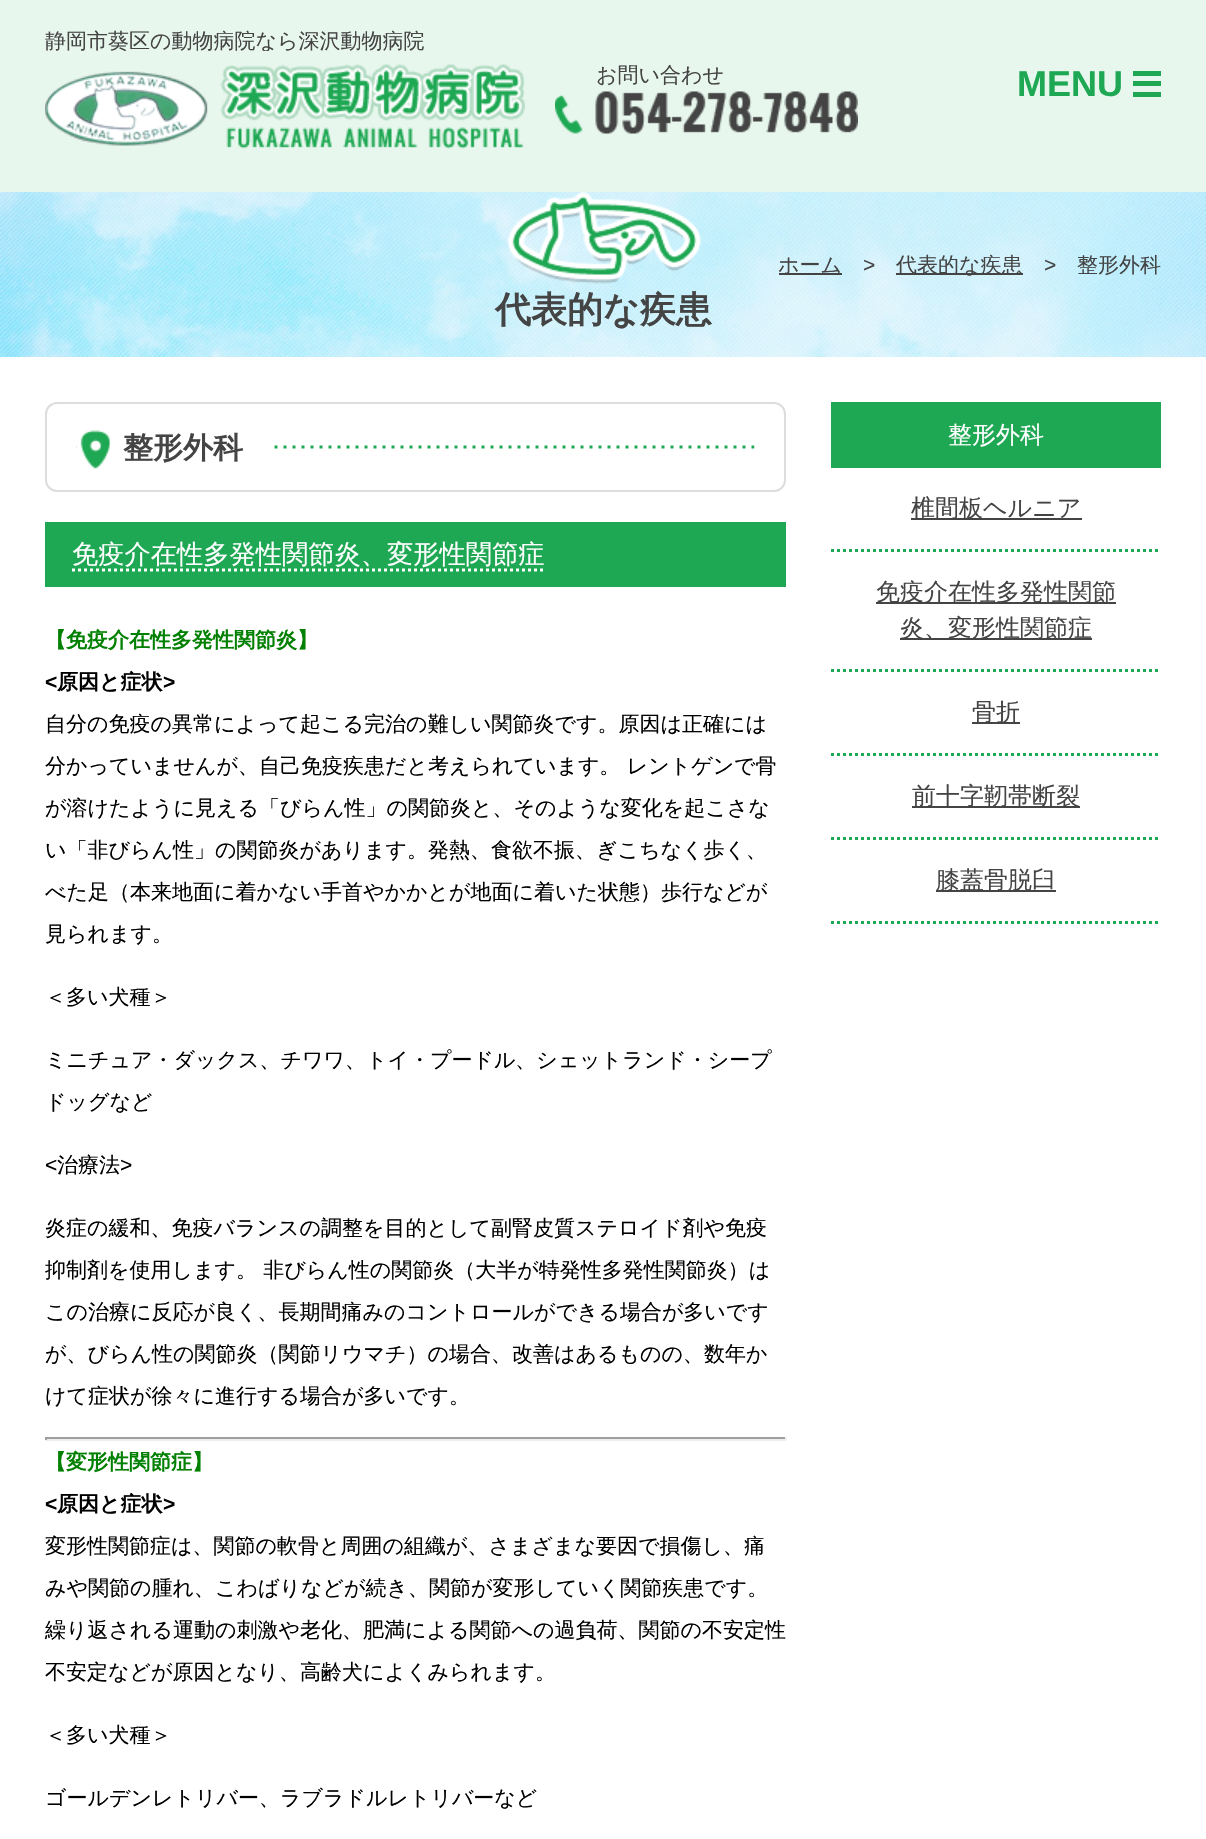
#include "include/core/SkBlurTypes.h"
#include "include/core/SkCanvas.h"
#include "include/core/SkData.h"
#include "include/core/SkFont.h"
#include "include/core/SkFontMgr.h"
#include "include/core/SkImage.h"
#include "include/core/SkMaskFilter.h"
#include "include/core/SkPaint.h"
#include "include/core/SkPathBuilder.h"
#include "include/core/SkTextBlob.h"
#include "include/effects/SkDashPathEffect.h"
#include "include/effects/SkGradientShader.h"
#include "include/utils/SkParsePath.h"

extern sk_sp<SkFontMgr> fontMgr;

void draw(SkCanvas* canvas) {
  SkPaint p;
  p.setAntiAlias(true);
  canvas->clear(SK_ColorWHITE);
  p.setColor(SkColorSetRGB(232, 247, 238));
  canvas->drawRect(SkRect::MakeLTRB(0, 0, 1206, 192), p);
  canvas->drawImageRect(SkImages::DeferredFromEncodedData(SkData::MakeFromFileName("images/2.png")), SkRect::MakeLTRB(555, 91, 858, 134), SkSamplingOptions());
  p.setColor(SkColorSetRGB(30, 168, 83));
  canvas->drawRect(SkRect::MakeLTRB(1133, 81, 1161, 86), p);
  canvas->drawRect(SkRect::MakeLTRB(1133, 71, 1161, 76), p);
  canvas->drawRect(SkRect::MakeLTRB(1133, 92, 1161, 97), p);
  canvas->drawImageRect(SkImages::DeferredFromEncodedData(SkData::MakeFromFileName("images/3.png")), SkRect::MakeLTRB(0, 192, 1206, 357), SkSamplingOptions());
  p.setColor(SkColorSetRGB(68, 68, 68));
  canvas->drawRect(SkRect::MakeLTRB(779, 273, 842, 275), p);
  canvas->drawRect(SkRect::MakeLTRB(896, 273, 1023, 275), p);
  canvas->drawImageRect(SkImages::DeferredFromEncodedData(SkData::MakeFromFileName("images/4.png")), SkRect::MakeLTRB(507, 192, 701, 284), SkSamplingOptions());
  p.setStyle(SkPaint::kStroke_Style);
  p.setStrokeWidth(2);
  p.setColor(SkColorSetRGB(221, 221, 221));
  canvas->drawRoundRect(SkRect::MakeLTRB(46, 403, 785, 491), 11, 11, p);
  canvas->drawImageRect(SkImages::DeferredFromEncodedData(SkData::MakeFromFileName("images/5.png")), SkRect::MakeLTRB(76, 445, 755, 449), SkSamplingOptions());
  p.setStyle(SkPaint::kFill_Style);
  p.setColor(SK_ColorWHITE);
  canvas->drawRect(SkRect::MakeLTRB(77, 445, 269, 449), p);
  canvas->drawImageRect(SkImages::DeferredFromEncodedData(SkData::MakeFromFileName("images/6.png")), SkRect::MakeLTRB(76, 430, 111, 469), SkSamplingOptions());
  p.setColor(SkColorSetRGB(30, 168, 83));
  canvas->drawRect(SkRect::MakeLTRB(45, 522, 786, 587), p);
  p.setStyle(SkPaint::kStroke_Style);
  p.setStrokeWidth(3);
  p.setColor(SK_ColorWHITE);
  p.setPathEffect(SkDashPathEffect::Make({{3, 3}}, 0));
  canvas->drawPath(SkPathBuilder().moveTo(72, 570).lineTo(544.5f, 570).detach(), p);
  p.setPathEffect(nullptr);
  p.setStyle(SkPaint::kFill_Style);
  p.setColor(SkColorSetRGB(159, 159, 159));
  canvas->drawRect(SkRect::MakeLTRB(45, 1437, 786, 1439), p);
  p.setColor(SkColorSetRGB(238, 238, 238));
  canvas->drawRect(SkRect::MakeLTRB(785, 1437, 787, 1440), p);
  canvas->drawRect(SkRect::MakeLTRB(45, 1439, 786, 1441), p);
  p.setColor(SkColorSetRGB(159, 159, 159));
  canvas->drawRect(SkRect::MakeLTRB(45, 1437, 47, 1440), p);
  p.setColor(SkColorSetRGB(30, 168, 83));
  canvas->drawRect(SkRect::MakeLTRB(831, 402, 1161, 468), p);
  p.setStyle(SkPaint::kStroke_Style);
  p.setPathEffect(SkDashPathEffect::Make({{3, 3}}, 0));
  canvas->drawPath(SkPathBuilder().moveTo(831, 550.5f).lineTo(1161, 550.5f).detach(), p);
  p.setPathEffect(nullptr);
  p.setStyle(SkPaint::kFill_Style);
  p.setColor(SkColorSetRGB(68, 68, 68));
  canvas->drawRect(SkRect::MakeLTRB(911, 518, 1082, 520), p);
  p.setStyle(SkPaint::kStroke_Style);
  p.setColor(SkColorSetRGB(30, 168, 83));
  p.setPathEffect(SkDashPathEffect::Make({{3, 3}}, 0));
  canvas->drawPath(SkPathBuilder().moveTo(831, 670.5f).lineTo(1161, 670.5f).detach(), p);
  p.setPathEffect(nullptr);
  p.setStyle(SkPaint::kFill_Style);
  p.setColor(SkColorSetRGB(68, 68, 68));
  canvas->drawRect(SkRect::MakeLTRB(876, 602, 1116, 604), p);
  canvas->drawRect(SkRect::MakeLTRB(900, 638, 1092, 640), p);
  p.setStyle(SkPaint::kStroke_Style);
  p.setColor(SkColorSetRGB(30, 168, 83));
  p.setPathEffect(SkDashPathEffect::Make({{3, 3}}, 0));
  canvas->drawPath(SkPathBuilder().moveTo(831, 754.5f).lineTo(1161, 754.5f).detach(), p);
  p.setPathEffect(nullptr);
  p.setStyle(SkPaint::kFill_Style);
  p.setColor(SkColorSetRGB(68, 68, 68));
  canvas->drawRect(SkRect::MakeLTRB(972, 722, 1020, 724), p);
  p.setStyle(SkPaint::kStroke_Style);
  p.setColor(SkColorSetRGB(30, 168, 83));
  p.setPathEffect(SkDashPathEffect::Make({{3, 3}}, 0));
  canvas->drawPath(SkPathBuilder().moveTo(831, 838.5f).lineTo(1161, 838.5f).detach(), p);
  p.setPathEffect(nullptr);
  p.setStyle(SkPaint::kFill_Style);
  p.setColor(SkColorSetRGB(68, 68, 68));
  canvas->drawRect(SkRect::MakeLTRB(912, 806, 1080, 808), p);
  p.setStyle(SkPaint::kStroke_Style);
  p.setColor(SkColorSetRGB(30, 168, 83));
  p.setPathEffect(SkDashPathEffect::Make({{3, 3}}, 0));
  canvas->drawPath(SkPathBuilder().moveTo(831, 922.5f).lineTo(1161, 922.5f).detach(), p);
  p.setPathEffect(nullptr);
  p.setStyle(SkPaint::kFill_Style);
  p.setColor(SkColorSetRGB(68, 68, 68));
  canvas->drawRect(SkRect::MakeLTRB(936, 890, 1056, 892), p);
  SkFont font1(fontMgr->matchFamilyStyle("WenQuanYi Zen Hei", SkFontStyle(500, SkFontStyle::kNormal_Width, SkFontStyle::kUpright_Slant)), 21);
  font1.setSubpixel(true);
  canvas->drawString("静岡市葵区の動物病院なら深沢動物病院", 45, 48, font1, p);
  canvas->drawImageRect(SkImages::DeferredFromEncodedData(SkData::MakeFromFileName("images/1.png")), SkRect::MakeLTRB(45, 51, 525, 149), SkSamplingOptions());
  canvas->drawString("お問い合わせ", 596, 82, font1, p);
  SkFont font2(fontMgr->matchFamilyStyle("Liberation Sans", SkFontStyle::Bold()), 36);
  font2.setSubpixel(true);
  p.setColor(SkColorSetRGB(30, 168, 83));
  canvas->drawString("MENU", 1017, 96, font2, p);
  p.setColor(SkColorSetRGB(68, 68, 68));
  canvas->drawString("ホーム", 778, 272, font1, p);
  SkFont font3(fontMgr->matchFamilyStyle("Liberation Sans", SkFontStyle::Normal()), 21);
  font3.setSubpixel(true);
  canvas->drawString(">", 863, 272, font3, p);
  canvas->drawString("代表的な疾患", 896, 272, font1, p);
  canvas->drawString(">", 1044, 272, font3, p);
  canvas->drawString("整形外科", 1077, 272, font1, p);
  SkFont font4(fontMgr->matchFamilyStyle("WenQuanYi Zen Hei", SkFontStyle::Bold()), 36);
  font4.setSubpixel(true);
  canvas->drawString("代表的な疾患", 495, 322, font4, p);
  SkFont font5(fontMgr->matchFamilyStyle("WenQuanYi Zen Hei", SkFontStyle::Bold()), 30);
  font5.setSubpixel(true);
  canvas->drawString("整形外科", 123, 458, font5, p);
  SkFont font6(fontMgr->matchFamilyStyle("WenQuanYi Zen Hei", SkFontStyle(500, SkFontStyle::kNormal_Width, SkFontStyle::kUpright_Slant)), 26.25f);
  font6.setSubpixel(true);
  p.setColor(SK_ColorWHITE);
  canvas->drawString("免疫介在性多発性関節炎、変形性関節症", 72, 563, font6, p);
  SkFont font7(fontMgr->matchFamilyStyle("WenQuanYi Zen Hei", SkFontStyle::Bold()), 21);
  font7.setSubpixel(true);
  p.setColor(SkColorSetRGB(0, 128, 0));
  canvas->drawString("【免疫介在性多発性関節炎】", 45, 647, font7, p);
  SkFont font8(fontMgr->matchFamilyStyle("Liberation Sans", SkFontStyle::Bold()), 21);
  font8.setSubpixel(true);
  p.setColor(SK_ColorBLACK);
  canvas->drawString("<", 45, 689, font8, p);
  canvas->drawString("原因と症状", 57, 689, font7, p);
  canvas->drawString(">", 163, 689, font8, p);
  canvas->drawString("自分の免疫の異常によって起こる完治の難しい関節炎です。原因は正確には", 45, 731, font1, p);
  canvas->drawString("分かっていませんが、自己免疫疾患だと考えられています。 レントゲンで骨", 45, 773, font1, p);
  canvas->drawString("が溶けたように見える「びらん性」の関節炎と、そのような変化を起こさな", 45, 815, font1, p);
  canvas->drawString("い「非びらん性」の関節炎があります。発熱、食欲不振、ぎこちなく歩く、", 45, 857, font1, p);
  canvas->drawString("べた足（本来地面に着かない手首やかかとが地面に着いた状態）歩行などが", 45, 899, font1, p);
  canvas->drawString("見られます。", 45, 941, font1, p);
  canvas->drawString("＜多い犬種＞", 45, 1004, font1, p);
  canvas->drawString("ミニチュア・ダックス、チワワ、トイ・プードル、シェットランド・シープ", 45, 1067, font1, p);
  canvas->drawString("ドッグなど", 45, 1109, font1, p);
  canvas->drawString("<", 45, 1172, font3, p);
  canvas->drawString("治療法", 57, 1172, font1, p);
  canvas->drawString(">", 120, 1172, font3, p);
  canvas->drawString("炎症の緩和、免疫バランスの調整を目的として副腎皮質ステロイド剤や免疫", 45, 1235, font1, p);
  canvas->drawString("抑制剤を使用します。 非びらん性の関節炎（大半が特発性多発性関節炎）は", 45, 1277, font1, p);
  canvas->drawString("この治療に反応が良く、長期間痛みのコントロールができる場合が多いです", 45, 1319, font1, p);
  canvas->drawString("が、びらん性の関節炎（関節リウマチ）の場合、改善はあるものの、数年か", 45, 1361, font1, p);
  canvas->drawString("けて症状が徐々に進行する場合が多いです。", 45, 1403, font1, p);
  p.setColor(SkColorSetRGB(0, 128, 0));
  canvas->drawString("【変形性関節症】", 45, 1469, font7, p);
  p.setColor(SK_ColorBLACK);
  canvas->drawString("<", 45, 1511, font8, p);
  canvas->drawString("原因と症状", 57, 1511, font7, p);
  canvas->drawString(">", 163, 1511, font8, p);
  canvas->drawString("変形性関節症は、関節の軟骨と周囲の組織が、さまざまな要因で損傷し、痛", 45, 1553, font1, p);
  canvas->drawString("みや関節の腫れ、こわばりなどが続き、関節が変形していく関節疾患です。", 45, 1595, font1, p);
  canvas->drawString("繰り返される運動の刺激や老化、肥満による関節への過負荷、関節の不安定性", 45, 1637, font1, p);
  canvas->drawString("不安定などが原因となり、高齢犬によくみられます。", 45, 1679, font1, p);
  canvas->drawString("＜多い犬種＞", 45, 1742, font1, p);
  canvas->drawString("ゴールデンレトリバー、ラブラドルレトリバーなど", 45, 1805, font1, p);
  SkFont font9(fontMgr->matchFamilyStyle("WenQuanYi Zen Hei", SkFontStyle(500, SkFontStyle::kNormal_Width, SkFontStyle::kUpright_Slant)), 24);
  font9.setSubpixel(true);
  p.setColor(SK_ColorWHITE);
  canvas->drawString("整形外科", 948, 443, font9, p);
  p.setColor(SkColorSetRGB(68, 68, 68));
  canvas->drawString("椎間板ヘルニア", 911, 516, font9, p);
  canvas->drawString("免疫介在性多発性関節", 876, 600, font9, p);
  canvas->drawString("炎、変形性関節症", 900, 636, font9, p);
  canvas->drawString("骨折", 972, 720, font9, p);
  canvas->drawString("前十字靭帯断裂", 912, 804, font9, p);
  canvas->drawString("膝蓋骨脱臼", 936, 888, font9, p);
}
